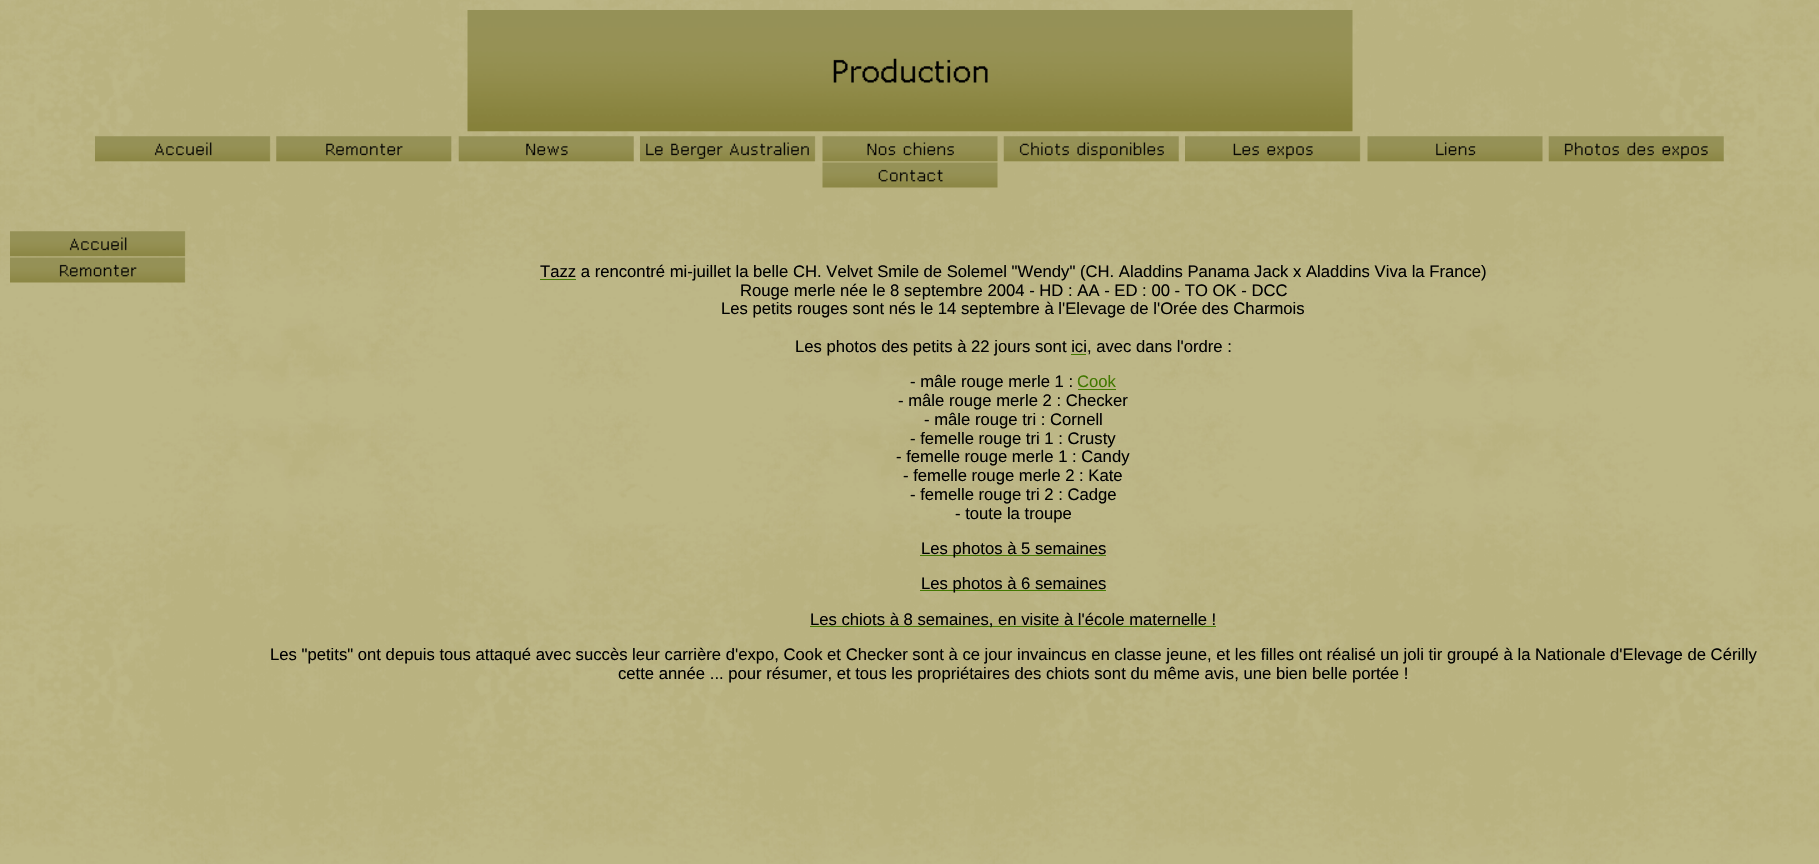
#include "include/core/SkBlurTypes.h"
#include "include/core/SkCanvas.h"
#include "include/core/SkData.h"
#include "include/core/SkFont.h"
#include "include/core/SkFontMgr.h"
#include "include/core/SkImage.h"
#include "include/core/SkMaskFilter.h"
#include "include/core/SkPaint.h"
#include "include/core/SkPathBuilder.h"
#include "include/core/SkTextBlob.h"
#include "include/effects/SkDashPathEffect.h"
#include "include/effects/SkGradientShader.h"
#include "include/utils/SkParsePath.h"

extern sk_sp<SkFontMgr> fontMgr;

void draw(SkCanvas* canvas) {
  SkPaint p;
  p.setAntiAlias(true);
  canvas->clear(SK_ColorWHITE);
  canvas->drawImageRect(SkImages::DeferredFromEncodedData(SkData::MakeFromFileName("images/1.png")), SkRect::MakeLTRB(0, 0, 1819, 864), SkSamplingOptions());
  canvas->drawImageRect(SkImages::DeferredFromEncodedData(SkData::MakeFromFileName("images/2.png")), SkRect::MakeLTRB(467, 10, 1353, 132), SkSamplingOptions());
  canvas->drawImageRect(SkImages::DeferredFromEncodedData(SkData::MakeFromFileName("images/3.png")), SkRect::MakeLTRB(95, 136, 271, 162), SkSamplingOptions());
  canvas->drawImageRect(SkImages::DeferredFromEncodedData(SkData::MakeFromFileName("images/4.png")), SkRect::MakeLTRB(276, 136, 452, 162), SkSamplingOptions());
  canvas->drawImageRect(SkImages::DeferredFromEncodedData(SkData::MakeFromFileName("images/5.png")), SkRect::MakeLTRB(458, 136, 634, 162), SkSamplingOptions());
  canvas->drawImageRect(SkImages::DeferredFromEncodedData(SkData::MakeFromFileName("images/6.png")), SkRect::MakeLTRB(640, 136, 816, 162), SkSamplingOptions());
  canvas->drawImageRect(SkImages::DeferredFromEncodedData(SkData::MakeFromFileName("images/7.png")), SkRect::MakeLTRB(822, 136, 998, 162), SkSamplingOptions());
  canvas->drawImageRect(SkImages::DeferredFromEncodedData(SkData::MakeFromFileName("images/8.png")), SkRect::MakeLTRB(1003, 136, 1179, 162), SkSamplingOptions());
  canvas->drawImageRect(SkImages::DeferredFromEncodedData(SkData::MakeFromFileName("images/9.png")), SkRect::MakeLTRB(1185, 136, 1361, 162), SkSamplingOptions());
  canvas->drawImageRect(SkImages::DeferredFromEncodedData(SkData::MakeFromFileName("images/10.png")), SkRect::MakeLTRB(1367, 136, 1543, 162), SkSamplingOptions());
  canvas->drawImageRect(SkImages::DeferredFromEncodedData(SkData::MakeFromFileName("images/11.png")), SkRect::MakeLTRB(1548, 136, 1724, 162), SkSamplingOptions());
  canvas->drawImageRect(SkImages::DeferredFromEncodedData(SkData::MakeFromFileName("images/12.png")), SkRect::MakeLTRB(822, 162, 998, 188), SkSamplingOptions());
  canvas->drawImageRect(SkImages::DeferredFromEncodedData(SkData::MakeFromFileName("images/13.png")), SkRect::MakeLTRB(10, 231, 186, 257), SkSamplingOptions());
  canvas->drawImageRect(SkImages::DeferredFromEncodedData(SkData::MakeFromFileName("images/14.png")), SkRect::MakeLTRB(10, 257, 186, 283), SkSamplingOptions());
  p.setColor(SkColorSetRGB(66, 120, 0));
  canvas->drawRect(SkRect::MakeLTRB(540, 279, 576, 280), p);
  canvas->drawRect(SkRect::MakeLTRB(1078, 389, 1116, 390), p);
  canvas->drawRect(SkRect::MakeLTRB(920, 555, 1106, 556), p);
  canvas->drawRect(SkRect::MakeLTRB(920, 590, 1106, 591), p);
  canvas->drawRect(SkRect::MakeLTRB(810, 626, 1216, 627), p);
  SkFont font1(fontMgr->matchFamilyStyle("Liberation Sans", SkFontStyle::Normal()), 16.67f);
  font1.setSubpixel(true);
  p.setColor(SK_ColorBLACK);
  canvas->drawString("Tazz a rencontré mi-juillet la belle CH. Velvet Smile de Solemel \"Wendy\" (CH. Aladdins Panama Jack x Aladdins Viva la France)", 540, 277, font1, p);
  canvas->drawString("Rouge merle née le 8 septembre 2004 - HD : AA - ED : 00 - TO OK - DCC", 740, 296, font1, p);
  canvas->drawString("Les petits rouges sont nés le 14 septembre à l'Elevage de l'Orée des Charmois", 721, 314, font1, p);
  canvas->drawString("Les photos des petits à 22 jours sont ici, avec dans l'ordre :", 795, 352, font1, p);
  p.setColor(SkColorSetRGB(66, 120, 0));
  canvas->drawRect(SkRect::MakeLTRB(1071, 354, 1086, 355), p);
  p.setColor(SK_ColorBLACK);
  canvas->drawString("- mâle rouge merle 1 :", 910, 387, font1, p);
  p.setColor(SkColorSetRGB(66, 120, 0));
  canvas->drawString("Cook", 1077, 387, font1, p);
  p.setColor(SK_ColorBLACK);
  canvas->drawString("- mâle rouge merle 2 : Checker", 898, 406, font1, p);
  canvas->drawString("- mâle rouge tri : Cornell", 924, 425, font1, p);
  canvas->drawString("- femelle rouge tri 1 : Crusty", 910, 444, font1, p);
  canvas->drawString("- femelle rouge merle 1 : Candy", 896, 462, font1, p);
  canvas->drawString("- femelle rouge merle 2 : Kate", 903, 481, font1, p);
  canvas->drawString("- femelle rouge tri 2 : Cadge", 910, 500, font1, p);
  canvas->drawString("- toute la troupe", 955, 519, font1, p);
  canvas->drawString("Les photos à 5 semaines", 921, 554, font1, p);
  canvas->drawString("Les photos à 6 semaines", 921, 589, font1, p);
  canvas->drawString("Les chiots à 8 semaines, en visite à l'école maternelle !", 810, 625, font1, p);
  canvas->drawString("Les \"petits\" ont depuis tous attaqué avec succès leur carrière d'expo, Cook et Checker sont à ce jour invaincus en classe jeune, et les filles ont réalisé un joli tir groupé à la Nationale d'Elevage de Cérilly", 270, 660, font1, p);
  canvas->drawString("cette année ... pour résumer, et tous les propriétaires des chiots sont du même avis, une bien belle portée !", 618, 679, font1, p);
}
